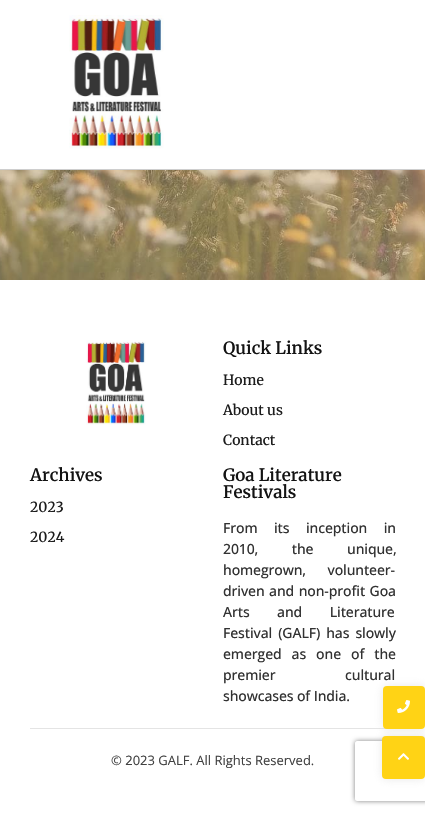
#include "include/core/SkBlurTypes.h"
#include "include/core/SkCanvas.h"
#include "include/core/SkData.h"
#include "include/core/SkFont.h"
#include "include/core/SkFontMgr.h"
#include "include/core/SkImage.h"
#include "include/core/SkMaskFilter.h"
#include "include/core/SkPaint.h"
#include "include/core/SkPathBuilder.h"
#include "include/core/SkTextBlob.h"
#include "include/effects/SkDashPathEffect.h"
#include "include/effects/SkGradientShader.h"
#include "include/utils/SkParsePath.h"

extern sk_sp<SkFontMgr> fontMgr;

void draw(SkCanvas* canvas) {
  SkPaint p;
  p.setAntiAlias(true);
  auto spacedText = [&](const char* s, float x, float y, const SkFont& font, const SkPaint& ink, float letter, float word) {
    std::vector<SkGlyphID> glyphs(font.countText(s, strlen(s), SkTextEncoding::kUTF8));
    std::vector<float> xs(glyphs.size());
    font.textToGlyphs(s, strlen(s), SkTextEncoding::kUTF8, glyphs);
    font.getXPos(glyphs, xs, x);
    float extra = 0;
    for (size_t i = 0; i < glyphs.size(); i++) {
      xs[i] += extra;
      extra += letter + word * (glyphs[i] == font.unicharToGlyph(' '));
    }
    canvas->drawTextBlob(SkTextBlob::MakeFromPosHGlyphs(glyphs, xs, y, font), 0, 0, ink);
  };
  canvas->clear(SK_ColorWHITE);
  p.setColor(SkColorSetRGB(206, 206, 206));
  canvas->drawRect(SkRect::MakeLTRB(0, 169, 425, 170), p);
  canvas->drawImageRect(SkImages::DeferredFromEncodedData(SkData::MakeFromFileName("images/1.png")), SkRect::MakeLTRB(69, 15, 164, 149), SkSamplingOptions());
  p.setColor(SkColorSetRGB(205, 192, 162));
  canvas->drawRect(SkRect::MakeLTRB(0, 170, 425, 280), p);
  canvas->drawImageRect(SkImages::DeferredFromEncodedData(SkData::MakeFromFileName("images/2.png")), SkRect::MakeLTRB(0, 170, 425, 280), SkSamplingOptions());
  canvas->drawImageRect(SkImages::DeferredFromEncodedData(SkData::MakeFromFileName("images/3.png")), SkRect::MakeLTRB(86, 340, 146, 425), SkSamplingOptions());
  p.setColor(SkColorSetRGB(228, 228, 228));
  canvas->drawRect(SkRect::MakeLTRB(30, 728, 395, 729), p);
  p.setColor(SkColorSetARGB(128, 207, 207, 207));
  p.setMaskFilter(SkMaskFilter::MakeBlur(kNormal_SkBlurStyle, 5));
  canvas->drawRoundRect(SkRect::MakeLTRB(382, 736, 425, 779), 4, 4, p);
  p.setMaskFilter(nullptr);
  canvas->save();
  canvas->clipPath(SkPathBuilder(SkPathFillType::kEvenOdd).moveTo(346, 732).lineTo(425, 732).lineTo(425, 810).lineTo(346, 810).close().moveTo(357, 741).lineTo(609, 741).cubicTo(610, 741, 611, 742, 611, 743).lineTo(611, 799).cubicTo(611, 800, 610, 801, 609, 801).lineTo(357, 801).cubicTo(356, 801, 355, 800, 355, 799).lineTo(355, 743).cubicTo(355, 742, 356, 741, 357, 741).close().detach(), true);
  p.setColor(SkColorSetRGB(128, 128, 128));
  p.setMaskFilter(SkMaskFilter::MakeBlur(kNormal_SkBlurStyle, 2.5f));
  canvas->drawRoundRect(SkRect::MakeLTRB(355, 741, 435, 801), 2, 2, p);
  p.setMaskFilter(nullptr);
  canvas->restore();
  p.setColor(SkColorSetRGB(255, 211, 21));
  canvas->drawRoundRect(SkRect::MakeLTRB(382, 736, 425, 779), 4, 4, p);
  p.setColor(SkColorSetARGB(128, 207, 207, 207));
  p.setMaskFilter(SkMaskFilter::MakeBlur(kNormal_SkBlurStyle, 5));
  canvas->drawRoundRect(SkRect::MakeLTRB(383, 686, 425, 729), 4, 4, p);
  p.setMaskFilter(nullptr);
  p.setColor(SkColorSetRGB(255, 211, 21));
  canvas->drawRoundRect(SkRect::MakeLTRB(383, 686, 425, 729), 4, 4, p);
  canvas->drawImageRect(SkImages::DeferredFromEncodedData(SkData::MakeFromFileName("images/4.png")), SkRect::MakeLTRB(397, 700, 410, 713), SkSamplingOptions());
  canvas->drawImageRect(SkImages::DeferredFromEncodedData(SkData::MakeFromFileName("images/5.png")), SkRect::MakeLTRB(398, 753, 409, 760), SkSamplingOptions());
  SkFont font1(fontMgr->matchFamilyStyle("Merriweather", SkFontStyle(600, SkFontStyle::kNormal_Width, SkFontStyle::kUpright_Slant)), 17);
  font1.setSubpixel(true);
  p.setColor(SkColorSetRGB(19, 19, 19));
  canvas->drawString("Quick Links", 223, 354, font1, p);
  SkFont font2(fontMgr->matchFamilyStyle("Merriweather", SkFontStyle(500, SkFontStyle::kNormal_Width, SkFontStyle::kUpright_Slant)), 14);
  font2.setSubpixel(true);
  p.setColor(SkColorSetRGB(28, 28, 28));
  canvas->drawString("Home", 223, 385, font2, p);
  canvas->drawString("About us", 223, 415, font2, p);
  canvas->drawString("Contact", 223, 445, font2, p);
  p.setColor(SkColorSetRGB(19, 19, 19));
  canvas->drawString("Archives", 30, 481, font1, p);
  p.setColor(SkColorSetRGB(28, 28, 28));
  canvas->drawString("2023", 30, 512, font2, p);
  canvas->drawString("2024", 30, 542, font2, p);
  p.setColor(SkColorSetRGB(19, 19, 19));
  canvas->drawString("Goa Literature", 223, 481, font1, p);
  canvas->drawString("Festivals", 223, 498, font1, p);
  SkFont font3(fontMgr->matchFamilyStyle("Open Sans", SkFontStyle(500, SkFontStyle::kNormal_Width, SkFontStyle::kUpright_Slant)), 14);
  font3.setSubpixel(true);
  p.setColor(SkColorSetRGB(50, 50, 50));
  spacedText("From its inception in", 223, 533, font3, p, -0.1f, 13);
  spacedText("2010, the unique,", 223, 554, font3, p, -0.1f, 30);
  spacedText("homegrown, volunteer-", 223, 575, font3, p, -0.1f, 18);
  spacedText("driven and non-profit Goa", 223, 596, font3, p, -0.1f, 1);
  spacedText("Arts and Literature", 223, 617, font3, p, -0.1f, 24);
  spacedText("Festival (GALF) has slowly", 223, 638, font3, p, -0.1f, 2.5f);
  spacedText("emerged as one of the", 223, 659, font3, p, -0.1f, 6.5f);
  spacedText("premier cultural", 223, 680, font3, p, -0.1f, 66);
  spacedText("showcases of India.", 223, 701, font3, p, -0.1f, 0);
  SkFont font4(fontMgr->matchFamilyStyle("Open Sans", SkFontStyle::Normal()), 13);
  font4.setSubpixel(true);
  p.setColor(SkColorSetRGB(65, 65, 65));
  canvas->drawString("© 2023 GALF. All Rights Reserved.", 111, 765, font4, p);
}
